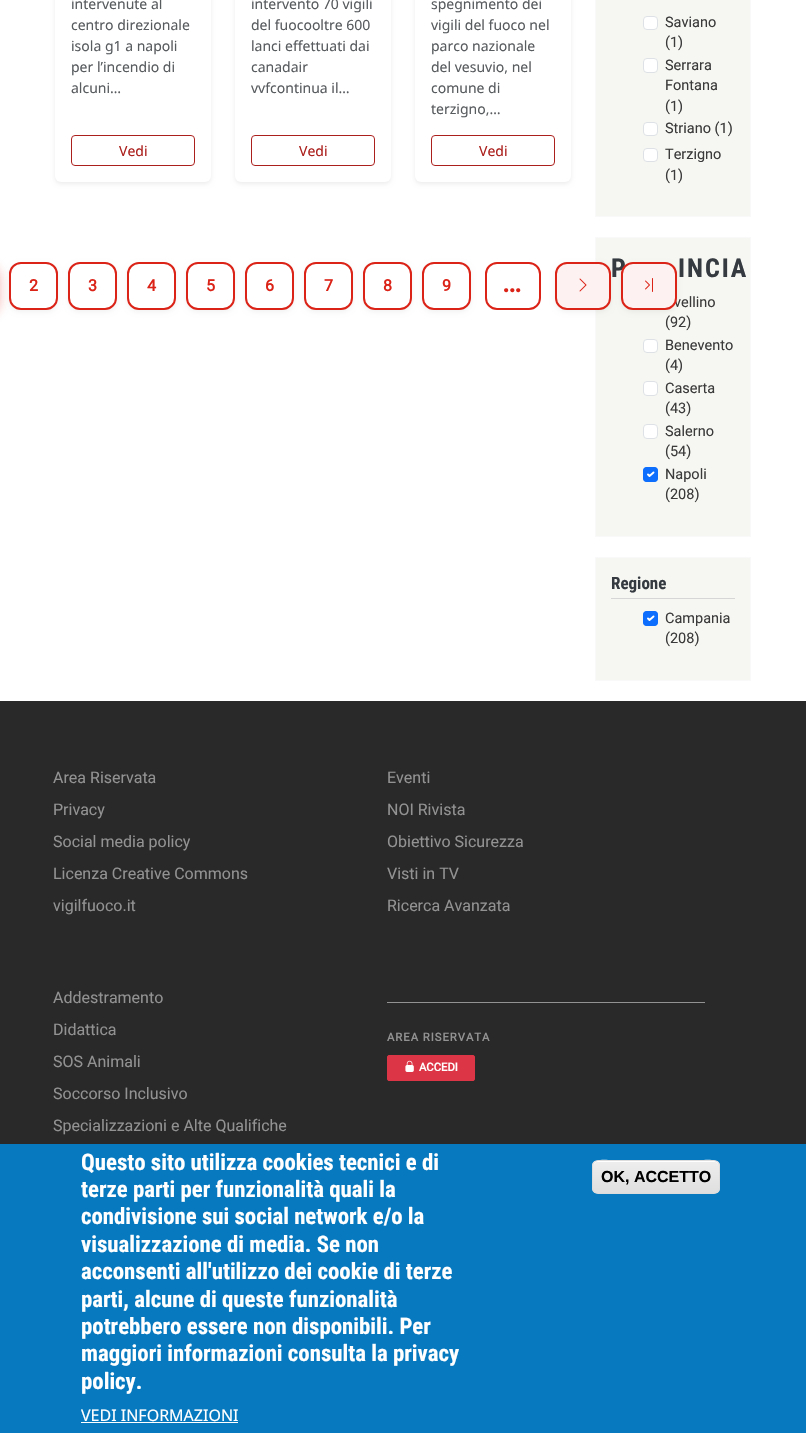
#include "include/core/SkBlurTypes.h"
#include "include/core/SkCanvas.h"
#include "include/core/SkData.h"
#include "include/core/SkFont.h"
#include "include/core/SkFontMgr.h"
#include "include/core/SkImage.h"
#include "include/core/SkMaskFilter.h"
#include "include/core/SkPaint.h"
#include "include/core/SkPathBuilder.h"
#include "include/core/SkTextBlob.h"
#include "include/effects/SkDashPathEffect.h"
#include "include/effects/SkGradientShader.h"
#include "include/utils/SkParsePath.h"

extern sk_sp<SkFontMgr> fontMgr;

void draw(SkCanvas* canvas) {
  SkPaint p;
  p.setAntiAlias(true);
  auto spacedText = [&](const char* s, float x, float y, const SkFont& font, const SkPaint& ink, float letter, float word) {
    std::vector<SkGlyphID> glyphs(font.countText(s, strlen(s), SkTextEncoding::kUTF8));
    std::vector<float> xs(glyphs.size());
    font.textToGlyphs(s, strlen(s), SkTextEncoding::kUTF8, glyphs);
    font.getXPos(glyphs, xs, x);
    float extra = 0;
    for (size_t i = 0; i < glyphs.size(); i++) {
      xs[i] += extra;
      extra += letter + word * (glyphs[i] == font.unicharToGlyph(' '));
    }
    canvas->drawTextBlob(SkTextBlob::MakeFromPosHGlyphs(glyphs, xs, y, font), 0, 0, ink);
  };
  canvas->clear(SK_ColorWHITE);
  p.setColor(SkColorSetARGB(18, 0, 0, 0));
  p.setMaskFilter(SkMaskFilter::MakeBlur(kNormal_SkBlurStyle, 2));
  canvas->drawRoundRect(SkRect::MakeLTRB(55, -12, 211, 184), 6, 6, p);
  p.setMaskFilter(nullptr);
  p.setColor(SK_ColorWHITE);
  canvas->drawRoundRect(SkRect::MakeLTRB(55, -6, 211, 182), 6, 6, p);
  p.setStyle(SkPaint::kStroke_Style);
  p.setStrokeWidth(1);
  p.setColor(SkColorSetRGB(171, 32, 29));
  canvas->drawRoundRect(SkRect::MakeLTRB(71.5f, 135.5f, 194.5f, 165.5f), 3.5f, 3.5f, p);
  p.setStyle(SkPaint::kFill_Style);
  p.setColor(SkColorSetARGB(18, 0, 0, 0));
  p.setMaskFilter(SkMaskFilter::MakeBlur(kNormal_SkBlurStyle, 2));
  canvas->drawRoundRect(SkRect::MakeLTRB(235, -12, 391, 184), 6, 6, p);
  p.setMaskFilter(nullptr);
  p.setColor(SK_ColorWHITE);
  canvas->drawRoundRect(SkRect::MakeLTRB(235, -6, 391, 182), 6, 6, p);
  p.setStyle(SkPaint::kStroke_Style);
  p.setColor(SkColorSetRGB(171, 32, 29));
  canvas->drawRoundRect(SkRect::MakeLTRB(251.5f, 135.5f, 374.5f, 165.5f), 3.5f, 3.5f, p);
  p.setStyle(SkPaint::kFill_Style);
  p.setColor(SkColorSetARGB(18, 0, 0, 0));
  p.setMaskFilter(SkMaskFilter::MakeBlur(kNormal_SkBlurStyle, 2));
  canvas->drawRoundRect(SkRect::MakeLTRB(415, -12, 571, 184), 6, 6, p);
  p.setMaskFilter(nullptr);
  p.setColor(SK_ColorWHITE);
  canvas->drawRoundRect(SkRect::MakeLTRB(415, -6, 571, 182), 6, 6, p);
  p.setStyle(SkPaint::kStroke_Style);
  p.setColor(SkColorSetRGB(171, 32, 29));
  canvas->drawRoundRect(SkRect::MakeLTRB(431.5f, 135.5f, 554.5f, 165.5f), 3.5f, 3.5f, p);
  p.setStyle(SkPaint::kFill_Style);
  p.setColor(SkColorSetARGB(13, 0, 0, 0));
  p.setMaskFilter(SkMaskFilter::MakeBlur(kNormal_SkBlurStyle, 2.5f));
  canvas->drawRoundRect(SkRect::MakeLTRB(9, 264, 58, 312), 12, 12, p);
  p.setMaskFilter(nullptr);
  p.setColor(SK_ColorWHITE);
  canvas->drawRoundRect(SkRect::MakeLTRB(10, 263, 57, 309), 11, 11, p);
  p.setStyle(SkPaint::kStroke_Style);
  p.setStrokeWidth(2);
  p.setColor(SkColorSetRGB(219, 35, 24));
  canvas->drawRoundRect(SkRect::MakeLTRB(10, 263, 57, 309), 11, 11, p);
  p.setStyle(SkPaint::kFill_Style);
  p.setColor(SkColorSetARGB(89, 219, 35, 24));
  p.setMaskFilter(SkMaskFilter::MakeBlur(kNormal_SkBlurStyle, 6));
  canvas->drawRoundRect(SkRect::MakeLTRB(-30, 266, -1, 314), 12, 12, p);
  p.setMaskFilter(nullptr);
  p.setColor(SkColorSetARGB(13, 0, 0, 0));
  p.setMaskFilter(SkMaskFilter::MakeBlur(kNormal_SkBlurStyle, 2.5f));
  canvas->drawRoundRect(SkRect::MakeLTRB(68, 264, 117, 312), 12, 12, p);
  p.setMaskFilter(nullptr);
  p.setColor(SK_ColorWHITE);
  canvas->drawRoundRect(SkRect::MakeLTRB(69, 263, 116, 309), 11, 11, p);
  p.setStyle(SkPaint::kStroke_Style);
  p.setColor(SkColorSetRGB(219, 35, 24));
  canvas->drawRoundRect(SkRect::MakeLTRB(69, 263, 116, 309), 11, 11, p);
  p.setStyle(SkPaint::kFill_Style);
  p.setColor(SkColorSetARGB(13, 0, 0, 0));
  p.setMaskFilter(SkMaskFilter::MakeBlur(kNormal_SkBlurStyle, 2.5f));
  canvas->drawRoundRect(SkRect::MakeLTRB(127, 264, 176, 312), 12, 12, p);
  p.setMaskFilter(nullptr);
  p.setColor(SK_ColorWHITE);
  canvas->drawRoundRect(SkRect::MakeLTRB(128, 263, 175, 309), 11, 11, p);
  p.setStyle(SkPaint::kStroke_Style);
  p.setColor(SkColorSetRGB(219, 35, 24));
  canvas->drawRoundRect(SkRect::MakeLTRB(128, 263, 175, 309), 11, 11, p);
  p.setStyle(SkPaint::kFill_Style);
  p.setColor(SkColorSetARGB(13, 0, 0, 0));
  p.setMaskFilter(SkMaskFilter::MakeBlur(kNormal_SkBlurStyle, 2.5f));
  canvas->drawRoundRect(SkRect::MakeLTRB(186, 264, 235, 312), 12, 12, p);
  p.setMaskFilter(nullptr);
  p.setColor(SK_ColorWHITE);
  canvas->drawRoundRect(SkRect::MakeLTRB(187, 263, 234, 309), 11, 11, p);
  p.setStyle(SkPaint::kStroke_Style);
  p.setColor(SkColorSetRGB(219, 35, 24));
  canvas->drawRoundRect(SkRect::MakeLTRB(187, 263, 234, 309), 11, 11, p);
  p.setStyle(SkPaint::kFill_Style);
  p.setColor(SkColorSetARGB(13, 0, 0, 0));
  p.setMaskFilter(SkMaskFilter::MakeBlur(kNormal_SkBlurStyle, 2.5f));
  canvas->drawRoundRect(SkRect::MakeLTRB(245, 264, 294, 312), 12, 12, p);
  p.setMaskFilter(nullptr);
  p.setColor(SK_ColorWHITE);
  canvas->drawRoundRect(SkRect::MakeLTRB(246, 263, 293, 309), 11, 11, p);
  p.setStyle(SkPaint::kStroke_Style);
  p.setColor(SkColorSetRGB(219, 35, 24));
  canvas->drawRoundRect(SkRect::MakeLTRB(246, 263, 293, 309), 11, 11, p);
  p.setStyle(SkPaint::kFill_Style);
  p.setColor(SkColorSetARGB(13, 0, 0, 0));
  p.setMaskFilter(SkMaskFilter::MakeBlur(kNormal_SkBlurStyle, 2.5f));
  canvas->drawRoundRect(SkRect::MakeLTRB(304, 264, 353, 312), 12, 12, p);
  p.setMaskFilter(nullptr);
  p.setColor(SK_ColorWHITE);
  canvas->drawRoundRect(SkRect::MakeLTRB(305, 263, 352, 309), 11, 11, p);
  p.setStyle(SkPaint::kStroke_Style);
  p.setColor(SkColorSetRGB(219, 35, 24));
  canvas->drawRoundRect(SkRect::MakeLTRB(305, 263, 352, 309), 11, 11, p);
  p.setStyle(SkPaint::kFill_Style);
  p.setColor(SkColorSetARGB(13, 0, 0, 0));
  p.setMaskFilter(SkMaskFilter::MakeBlur(kNormal_SkBlurStyle, 2.5f));
  canvas->drawRoundRect(SkRect::MakeLTRB(363, 264, 412, 312), 12, 12, p);
  p.setMaskFilter(nullptr);
  p.setColor(SK_ColorWHITE);
  canvas->drawRoundRect(SkRect::MakeLTRB(364, 263, 411, 309), 11, 11, p);
  p.setStyle(SkPaint::kStroke_Style);
  p.setColor(SkColorSetRGB(219, 35, 24));
  canvas->drawRoundRect(SkRect::MakeLTRB(364, 263, 411, 309), 11, 11, p);
  p.setStyle(SkPaint::kFill_Style);
  p.setColor(SkColorSetARGB(13, 0, 0, 0));
  p.setMaskFilter(SkMaskFilter::MakeBlur(kNormal_SkBlurStyle, 2.5f));
  canvas->drawRoundRect(SkRect::MakeLTRB(422, 264, 471, 312), 12, 12, p);
  p.setMaskFilter(nullptr);
  p.setColor(SK_ColorWHITE);
  canvas->drawRoundRect(SkRect::MakeLTRB(423, 263, 470, 309), 11, 11, p);
  p.setStyle(SkPaint::kStroke_Style);
  p.setColor(SkColorSetRGB(219, 35, 24));
  canvas->drawRoundRect(SkRect::MakeLTRB(423, 263, 470, 309), 11, 11, p);
  canvas->drawRoundRect(SkRect::MakeLTRB(486, 263, 540, 309), 11, 11, p);
  p.setStyle(SkPaint::kFill_Style);
  p.setColor(SkColorSetRGB(246, 246, 242));
  canvas->drawRect(SkRect::MakeLTRB(595.5f, 237.5f, 750.5f, 536.5f), p);
  p.setStyle(SkPaint::kStroke_Style);
  p.setStrokeWidth(1);
  p.setColor(SkColorSetRGB(249, 249, 249));
  canvas->drawRect(SkRect::MakeLTRB(595.5f, 237.5f, 750.5f, 536.5f), p);
  p.setStyle(SkPaint::kFill_Style);
  p.setColor(SkColorSetARGB(13, 0, 0, 0));
  p.setMaskFilter(SkMaskFilter::MakeBlur(kNormal_SkBlurStyle, 2.5f));
  canvas->drawRoundRect(SkRect::MakeLTRB(555, 264, 611, 312), 12, 12, p);
  p.setMaskFilter(nullptr);
  p.setColor(SkColorSetRGB(253, 242, 241));
  canvas->drawRoundRect(SkRect::MakeLTRB(556, 263, 610, 309), 11, 11, p);
  p.setStyle(SkPaint::kStroke_Style);
  p.setStrokeWidth(2);
  p.setColor(SkColorSetRGB(219, 35, 24));
  canvas->drawRoundRect(SkRect::MakeLTRB(556, 263, 610, 309), 11, 11, p);
  canvas->drawImageRect(SkImages::DeferredFromEncodedData(SkData::MakeFromFileName("images/1.png")), SkRect::MakeLTRB(579, 278, 587, 292), SkSamplingOptions());
  p.setStyle(SkPaint::kFill_Style);
  p.setColor(SkColorSetARGB(13, 0, 0, 0));
  p.setMaskFilter(SkMaskFilter::MakeBlur(kNormal_SkBlurStyle, 2.5f));
  canvas->drawRoundRect(SkRect::MakeLTRB(621, 264, 677, 312), 12, 12, p);
  p.setMaskFilter(nullptr);
  p.setColor(SkColorSetRGB(246, 246, 242));
  canvas->drawRect(SkRect::MakeLTRB(595.5f, -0.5f, 750.5f, 216.5f), p);
  p.setStyle(SkPaint::kStroke_Style);
  p.setStrokeWidth(1);
  p.setColor(SkColorSetRGB(249, 249, 249));
  canvas->drawRect(SkRect::MakeLTRB(595.5f, -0.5f, 750.5f, 216.5f), p);
  p.setStyle(SkPaint::kFill_Style);
  p.setColor(SK_ColorWHITE);
  canvas->drawRoundRect(SkRect::MakeLTRB(643.5f, 16.5f, 657.5f, 29.5f), 3.5f, 3.5f, p);
  p.setStyle(SkPaint::kStroke_Style);
  p.setColor(SkColorSetRGB(222, 226, 230));
  canvas->drawRoundRect(SkRect::MakeLTRB(643.5f, 16.5f, 657.5f, 29.5f), 3.5f, 3.5f, p);
  p.setStyle(SkPaint::kFill_Style);
  p.setColor(SK_ColorWHITE);
  canvas->drawRoundRect(SkRect::MakeLTRB(643.5f, 58.5f, 657.5f, 72.5f), 3.5f, 3.5f, p);
  p.setStyle(SkPaint::kStroke_Style);
  p.setColor(SkColorSetRGB(222, 226, 230));
  canvas->drawRoundRect(SkRect::MakeLTRB(643.5f, 58.5f, 657.5f, 72.5f), 3.5f, 3.5f, p);
  p.setStyle(SkPaint::kFill_Style);
  p.setColor(SK_ColorWHITE);
  canvas->drawRoundRect(SkRect::MakeLTRB(643.5f, 122.5f, 657.5f, 135.5f), 3.5f, 3.5f, p);
  p.setStyle(SkPaint::kStroke_Style);
  p.setColor(SkColorSetRGB(222, 226, 230));
  canvas->drawRoundRect(SkRect::MakeLTRB(643.5f, 122.5f, 657.5f, 135.5f), 3.5f, 3.5f, p);
  p.setStyle(SkPaint::kFill_Style);
  p.setColor(SK_ColorWHITE);
  canvas->drawRoundRect(SkRect::MakeLTRB(643.5f, 148.5f, 657.5f, 161.5f), 3.5f, 3.5f, p);
  p.setStyle(SkPaint::kStroke_Style);
  p.setColor(SkColorSetRGB(222, 226, 230));
  canvas->drawRoundRect(SkRect::MakeLTRB(643.5f, 148.5f, 657.5f, 161.5f), 3.5f, 3.5f, p);
  p.setStyle(SkPaint::kFill_Style);
  p.setColor(SK_ColorWHITE);
  canvas->drawRoundRect(SkRect::MakeLTRB(643.5f, 339.5f, 657.5f, 352.5f), 3.5f, 3.5f, p);
  p.setStyle(SkPaint::kStroke_Style);
  p.setColor(SkColorSetRGB(222, 226, 230));
  canvas->drawRoundRect(SkRect::MakeLTRB(643.5f, 339.5f, 657.5f, 352.5f), 3.5f, 3.5f, p);
  p.setStyle(SkPaint::kFill_Style);
  p.setColor(SK_ColorWHITE);
  canvas->drawRoundRect(SkRect::MakeLTRB(643.5f, 381.5f, 657.5f, 395.5f), 3.5f, 3.5f, p);
  p.setStyle(SkPaint::kStroke_Style);
  p.setColor(SkColorSetRGB(222, 226, 230));
  canvas->drawRoundRect(SkRect::MakeLTRB(643.5f, 381.5f, 657.5f, 395.5f), 3.5f, 3.5f, p);
  p.setStyle(SkPaint::kFill_Style);
  p.setColor(SK_ColorWHITE);
  canvas->drawRoundRect(SkRect::MakeLTRB(643.5f, 424.5f, 657.5f, 438.5f), 3.5f, 3.5f, p);
  p.setStyle(SkPaint::kStroke_Style);
  p.setColor(SkColorSetRGB(222, 226, 230));
  canvas->drawRoundRect(SkRect::MakeLTRB(643.5f, 424.5f, 657.5f, 438.5f), 3.5f, 3.5f, p);
  p.setStyle(SkPaint::kFill_Style);
  p.setColor(SkColorSetRGB(13, 110, 253));
  canvas->drawRoundRect(SkRect::MakeLTRB(643, 467, 658, 482), 4, 4, p);
  p.setStyle(SkPaint::kStroke_Style);
  p.setStrokeWidth(1.9f);
  p.setStrokeCap(SkPaint::kRound_Cap);
  p.setStrokeJoin(SkPaint::kRound_Join);
  p.setColor(SK_ColorWHITE);
  canvas->drawPath(SkPathBuilder().moveTo(648, 474.5f).lineTo(649.5f, 476).lineTo(653.5f, 472.5f).detach(), p);
  p.setStrokeWidth(1);
  p.setStrokeCap(SkPaint::kButt_Cap);
  p.setStrokeJoin(SkPaint::kMiter_Join);
  p.setColor(SkColorSetRGB(13, 110, 253));
  canvas->drawRoundRect(SkRect::MakeLTRB(643.5f, 467.5f, 657.5f, 481.5f), 3.5f, 3.5f, p);
  p.setStyle(SkPaint::kFill_Style);
  p.setColor(SkColorSetRGB(246, 246, 242));
  canvas->drawRect(SkRect::MakeLTRB(595.5f, 557.5f, 750.5f, 680.5f), p);
  p.setStyle(SkPaint::kStroke_Style);
  p.setColor(SkColorSetRGB(249, 249, 249));
  canvas->drawRect(SkRect::MakeLTRB(595.5f, 557.5f, 750.5f, 680.5f), p);
  p.setStyle(SkPaint::kFill_Style);
  p.setColor(SkColorSetRGB(214, 214, 214));
  canvas->drawRect(SkRect::MakeLTRB(611, 598, 735, 599), p);
  p.setColor(SkColorSetRGB(13, 110, 253));
  canvas->drawRoundRect(SkRect::MakeLTRB(643, 611, 658, 626), 4, 4, p);
  p.setStyle(SkPaint::kStroke_Style);
  p.setStrokeWidth(1.9f);
  p.setStrokeCap(SkPaint::kRound_Cap);
  p.setStrokeJoin(SkPaint::kRound_Join);
  p.setColor(SK_ColorWHITE);
  canvas->drawPath(SkPathBuilder().moveTo(648, 618.5f).lineTo(649.5f, 620).lineTo(653.5f, 616.5f).detach(), p);
  p.setStrokeWidth(1);
  p.setStrokeCap(SkPaint::kButt_Cap);
  p.setStrokeJoin(SkPaint::kMiter_Join);
  p.setColor(SkColorSetRGB(13, 110, 253));
  canvas->drawRoundRect(SkRect::MakeLTRB(643.5f, 611.5f, 657.5f, 625.5f), 3.5f, 3.5f, p);
  p.setStyle(SkPaint::kFill_Style);
  p.setColor(SkColorSetRGB(41, 41, 41));
  canvas->drawRect(SkRect::MakeLTRB(0, 701, 806, 1144), p);
  p.setColor(SkColorSetRGB(146, 146, 146));
  canvas->drawRect(SkRect::MakeLTRB(387, 1002, 705, 1003), p);
  p.setColor(SkColorSetRGB(220, 53, 69));
  canvas->drawRoundRect(SkRect::MakeLTRB(387.5f, 1055.5f, 474.5f, 1080.5f), 1.5f, 1.5f, p);
  p.setStyle(SkPaint::kStroke_Style);
  canvas->drawRoundRect(SkRect::MakeLTRB(387.5f, 1055.5f, 474.5f, 1080.5f), 1.5f, 1.5f, p);
  canvas->drawImageRect(SkImages::DeferredFromEncodedData(SkData::MakeFromFileName("images/3.png")), SkRect::MakeLTRB(405, 1060, 414, 1072), SkSamplingOptions());
  p.setStyle(SkPaint::kFill_Style);
  p.setColor(SkColorSetRGB(7, 121, 191));
  canvas->drawRect(SkRect::MakeLTRB(0, 1144, 806, 1433), p);
  p.setColor(SK_ColorWHITE);
  canvas->drawRect(SkRect::MakeLTRB(81, 1422, 238, 1423), p);
  canvas->save();
  canvas->clipPath(SkPathBuilder().moveTo(598, 1160).lineTo(714, 1160).cubicTo(717.5f, 1160, 720, 1162.5f, 720, 1166).lineTo(720, 1188).cubicTo(720, 1191.5f, 717.5f, 1194, 714, 1194).lineTo(598, 1194).cubicTo(594.5f, 1194, 592, 1191.5f, 592, 1188).lineTo(592, 1166).cubicTo(592, 1162.5f, 594.5f, 1160, 598, 1160).close().detach(), true);
  {
    const SkColor colors[] = {SkColorSetRGB(237, 237, 237), SkColorSetRGB(223, 223, 223)};
    const float stops[] = {0.05f, 1};
    const SkPoint ends[] = {{656, 1161}, {656, 1193}};
    p.setShader(SkGradientShader::MakeLinear(ends, colors, stops, 2, SkTileMode::kClamp));
    p.setAlpha(255);
  }
  canvas->drawRect(SkRect::MakeLTRB(592, 1161, 720, 1193), p);
  canvas->restore();
  p.setShader(nullptr);
  p.setColor(SK_ColorWHITE);
  canvas->drawPath(SkPathBuilder().moveTo(598, 1162).lineTo(714, 1162).cubicTo(717, 1162, 719, 1164, 719, 1167).cubicTo(719, 1156, 699, 1161, 695, 1161).lineTo(617, 1161).cubicTo(613, 1161, 593, 1156, 593, 1167).cubicTo(593, 1164, 595, 1162, 598, 1162).close().detach(), p);
  p.setStyle(SkPaint::kStroke_Style);
  p.setColor(SkColorSetRGB(220, 220, 220));
  canvas->drawRoundRect(SkRect::MakeLTRB(592.5f, 1160.5f, 719.5f, 1193.5f), 5.5f, 5.5f, p);
  SkFont font1(fontMgr->matchFamilyStyle("Noto Sans", SkFontStyle::Normal()), 14);
  font1.setSubpixel(true);
  p.setStyle(SkPaint::kFill_Style);
  p.setColor(SkColorSetRGB(89, 92, 95));
  canvas->drawString("intervenute al", 71, 9, font1, p);
  canvas->drawString("centro direzionale", 71, 30, font1, p);
  canvas->drawString("isola g1 a napoli", 71, 51, font1, p);
  canvas->drawString("per l’incendio di", 71, 72, font1, p);
  canvas->drawString("alcuni…", 71, 93, font1, p);
  p.setColor(SkColorSetRGB(171, 32, 29));
  canvas->drawString("Vedi", 119, 156, font1, p);
  p.setColor(SkColorSetRGB(89, 92, 95));
  canvas->drawString("intervento 70 vigili", 251, 9, font1, p);
  canvas->drawString("del fuocooltre 600", 251, 30, font1, p);
  canvas->drawString("lanci effettuati dai", 251, 51, font1, p);
  canvas->drawString("canadair", 251, 72, font1, p);
  canvas->drawString("vvfcontinua il…", 251, 93, font1, p);
  p.setColor(SkColorSetRGB(171, 32, 29));
  canvas->drawString("Vedi", 299, 156, font1, p);
  p.setColor(SkColorSetRGB(89, 92, 95));
  canvas->drawString("spegnimento dei", 431, 9, font1, p);
  canvas->drawString("vigili del fuoco nel", 431, 30, font1, p);
  canvas->drawString("parco nazionale", 431, 51, font1, p);
  canvas->drawString("del vesuvio, nel", 431, 72, font1, p);
  canvas->drawString("comune di", 431, 93, font1, p);
  canvas->drawString("terzigno,…", 431, 114, font1, p);
  p.setColor(SkColorSetRGB(171, 32, 29));
  canvas->drawString("Vedi", 479, 156, font1, p);
  SkFont font2(fontMgr->matchFamilyStyle("Roboto", SkFontStyle::Bold()), 16);
  font2.setSubpixel(true);
  p.setColor(SkColorSetRGB(219, 35, 24));
  canvas->drawString("2", 29, 291, font2, p);
  canvas->drawString("3", 88, 291, font2, p);
  canvas->drawString("4", 147, 291, font2, p);
  canvas->drawString("5", 206, 291, font2, p);
  canvas->drawString("6", 265, 291, font2, p);
  canvas->drawString("7", 324, 291, font2, p);
  canvas->drawString("8", 383, 291, font2, p);
  canvas->drawString("9", 442, 291, font2, p);
  SkFont font3(fontMgr->matchFamilyStyle("Roboto", SkFontStyle::Bold()), 29);
  font3.setSubpixel(true);
  spacedText("…", 502, 292, font3, p, 1, 0);
  SkFont font4(fontMgr->matchFamilyStyle("Roboto", SkFontStyle::Normal()), 14.5f);
  font4.setSubpixel(true);
  p.setColor(SkColorSetRGB(59, 59, 59));
  canvas->drawString("Saviano", 665, 27, font4, p);
  canvas->drawString("(1)", 665, 47, font4, p);
  canvas->drawString("Serrara", 665, 70, font4, p);
  canvas->drawString("Fontana", 665, 90, font4, p);
  canvas->drawString("(1)", 665, 111, font4, p);
  canvas->drawString("Striano (1)", 665, 133, font4, p);
  canvas->drawString("Terzigno", 665, 159, font4, p);
  canvas->drawString("(1)", 665, 180, font4, p);
  SkFont font5(fontMgr->matchFamilyStyle("Roboto Condensed", SkFontStyle::Bold()), 26);
  font5.setSubpixel(true);
  p.setColor(SkColorSetRGB(52, 58, 64));
  spacedText("P", 611, 277, font5, p, 2, 0);
  spacedText("INCIA", 678, 277, font5, p, 2, 0);
  p.setColor(SkColorSetRGB(59, 59, 59));
  canvas->drawString("vellino", 674, 307, font4, p);
  p.setColor(SkColorSetRGB(253, 242, 241));
  canvas->drawRoundRect(SkRect::MakeLTRB(622, 263, 676, 309), 11, 11, p);
  p.setStyle(SkPaint::kStroke_Style);
  p.setStrokeWidth(2);
  p.setColor(SkColorSetRGB(219, 35, 24));
  canvas->drawRoundRect(SkRect::MakeLTRB(622, 263, 676, 309), 11, 11, p);
  canvas->drawImageRect(SkImages::DeferredFromEncodedData(SkData::MakeFromFileName("images/2.png")), SkRect::MakeLTRB(645, 278, 653, 292), SkSamplingOptions());
  p.setStyle(SkPaint::kFill_Style);
  p.setColor(SkColorSetRGB(59, 59, 59));
  canvas->drawString("(92)", 665, 327, font4, p);
  canvas->drawString("Benevento", 665, 350, font4, p);
  canvas->drawString("(4)", 665, 370, font4, p);
  canvas->drawString("Caserta", 665, 393, font4, p);
  canvas->drawString("(43)", 665, 413, font4, p);
  canvas->drawString("Salerno", 665, 436, font4, p);
  canvas->drawString("(54)", 665, 456, font4, p);
  canvas->drawString("Napoli", 665, 479, font4, p);
  canvas->drawString("(208)", 665, 499, font4, p);
  SkFont font6(fontMgr->matchFamilyStyle("Roboto Condensed", SkFontStyle::Bold()), 17);
  font6.setSubpixel(true);
  p.setColor(SkColorSetRGB(52, 58, 64));
  canvas->drawString("Regione", 611, 589, font6, p);
  p.setColor(SkColorSetRGB(59, 59, 59));
  canvas->drawString("Campania", 665, 623, font4, p);
  canvas->drawString("(208)", 665, 643, font4, p);
  SkFont font7(fontMgr->matchFamilyStyle("Roboto", SkFontStyle::Normal()), 16);
  font7.setSubpixel(true);
  p.setColor(SkColorSetRGB(146, 146, 146));
  canvas->drawString("Area Riservata", 53, 783, font7, p);
  canvas->drawString("Privacy", 53, 815, font7, p);
  canvas->drawString("Social media policy", 53, 847, font7, p);
  canvas->drawString("Licenza Creative Commons", 53, 879, font7, p);
  canvas->drawString("vigilfuoco.it", 53, 911, font7, p);
  canvas->drawString("Eventi", 387, 783, font7, p);
  canvas->drawString("NOI Rivista", 387, 815, font7, p);
  canvas->drawString("Obiettivo Sicurezza", 387, 847, font7, p);
  canvas->drawString("Visti in TV", 387, 879, font7, p);
  canvas->drawString("Ricerca Avanzata", 387, 911, font7, p);
  canvas->drawString("Addestramento", 53, 1003, font7, p);
  canvas->drawString("Didattica", 53, 1035, font7, p);
  canvas->drawString("SOS Animali", 53, 1067, font7, p);
  canvas->drawString("Soccorso Inclusivo", 53, 1099, font7, p);
  canvas->drawString("Specializzazioni e Alte Qualifiche", 53, 1131, font7, p);
  SkFont font8(fontMgr->matchFamilyStyle("Roboto", SkFontStyle::Bold()), 11.25f);
  font8.setSubpixel(true);
  spacedText("AREA RISERVATA", 387, 1041, font8, p, 1, 0);
  p.setColor(SK_ColorWHITE);
  canvas->drawString("ACCEDI", 419, 1071, font8, p);
  SkFont font9(fontMgr->matchFamilyStyle("Roboto Condensed", SkFontStyle::Bold()), 22.8f);
  font9.setSubpixel(true);
  canvas->drawString("Questo sito utilizza cookies tecnici e di", 81, 1170, font9, p);
  canvas->drawString("terze parti per funzionalità quali la", 81, 1197, font9, p);
  canvas->drawString("condivisione sui social network e/o la", 81, 1224, font9, p);
  canvas->drawString("visualizzazione di media. Se non", 81, 1252, font9, p);
  canvas->drawString("acconsenti all'utilizzo dei cookie di terze", 81, 1279, font9, p);
  canvas->drawString("parti, alcune di queste funzionalità", 81, 1307, font9, p);
  canvas->drawString("potrebbero essere non disponibili. Per", 81, 1334, font9, p);
  canvas->drawString("maggiori informazioni consulta la privacy", 81, 1361, font9, p);
  canvas->drawString("policy.", 81, 1389, font9, p);
  SkFont font10(fontMgr->matchFamilyStyle("Noto Sans", SkFontStyle::Normal()), 16);
  font10.setSubpixel(true);
  canvas->drawString("VEDI INFORMAZIONI", 81, 1421, font10, p);
  SkFont font11(fontMgr->matchFamilyStyle("Liberation Sans", SkFontStyle::Bold()), 16);
  font11.setSubpixel(true);
  p.setColor(SK_ColorBLACK);
  canvas->drawString("OK, ACCETTO", 601, 1182, font11, p);
}
